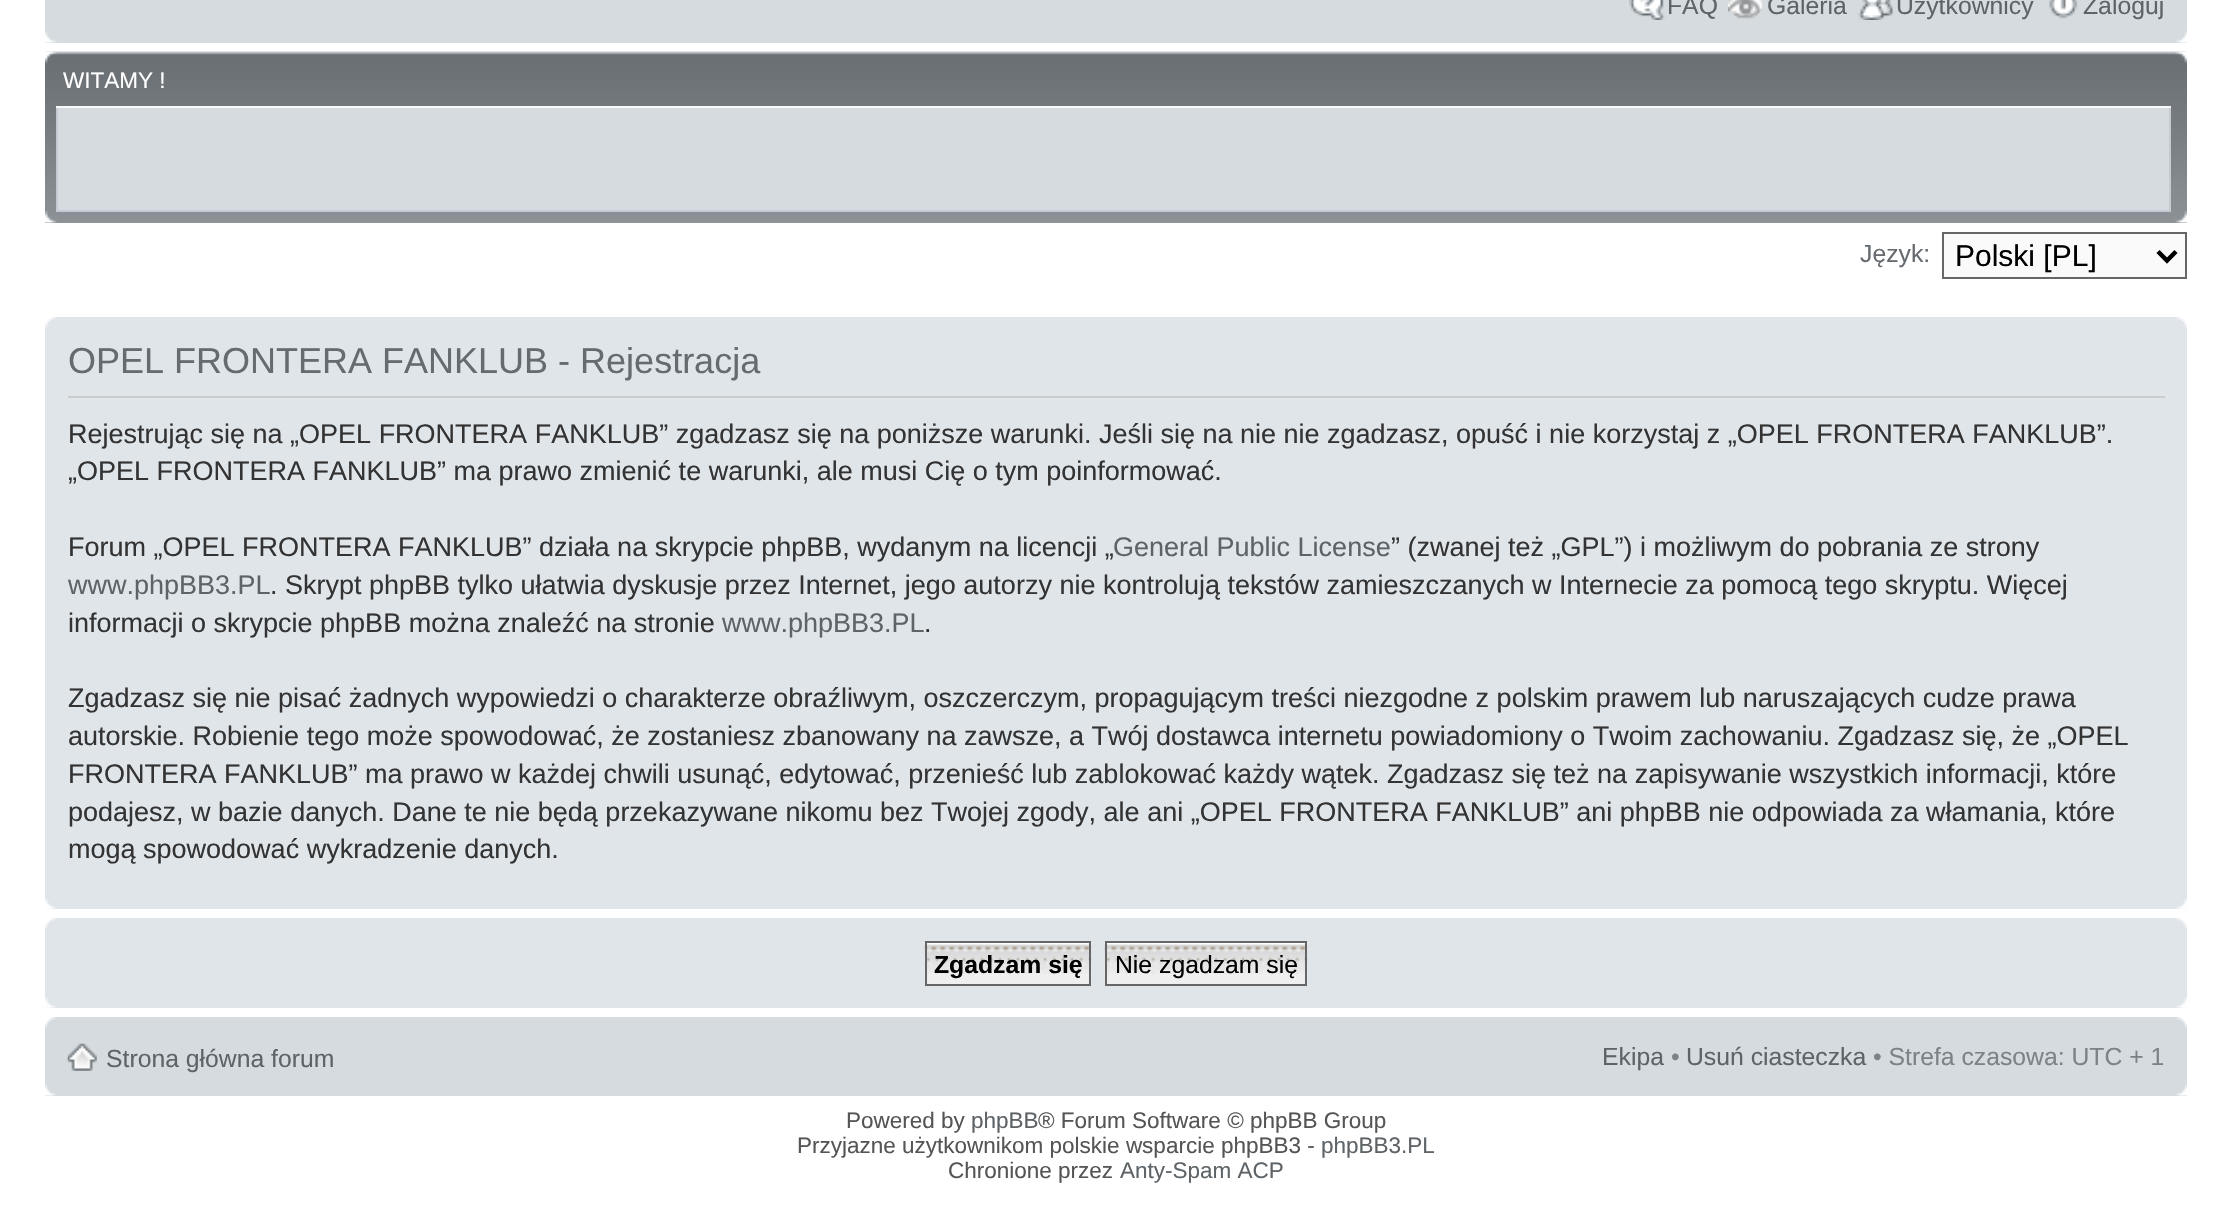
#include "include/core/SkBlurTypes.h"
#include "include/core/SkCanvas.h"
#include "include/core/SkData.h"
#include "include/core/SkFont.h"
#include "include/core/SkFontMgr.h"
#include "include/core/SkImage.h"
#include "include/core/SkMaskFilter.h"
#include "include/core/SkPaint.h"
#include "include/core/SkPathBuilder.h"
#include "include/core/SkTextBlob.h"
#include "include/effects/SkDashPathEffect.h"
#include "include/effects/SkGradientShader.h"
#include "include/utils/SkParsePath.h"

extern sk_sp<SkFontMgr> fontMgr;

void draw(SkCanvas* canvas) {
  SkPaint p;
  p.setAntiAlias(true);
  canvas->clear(SK_ColorWHITE);
  p.setColor(SkColorSetRGB(213, 219, 223));
  canvas->drawRect(SkRect::MakeLTRB(45, 0, 2187, 43), p);
  canvas->drawImageRect(SkImages::DeferredFromEncodedData(SkData::MakeFromFileName("images/1.png")), SkRect::MakeLTRB(1629, 0, 1665, 20), SkSamplingOptions());
  canvas->drawImageRect(SkImages::DeferredFromEncodedData(SkData::MakeFromFileName("images/2.png")), SkRect::MakeLTRB(1728, 0, 1763, 19), SkSamplingOptions());
  canvas->drawImageRect(SkImages::DeferredFromEncodedData(SkData::MakeFromFileName("images/3.png")), SkRect::MakeLTRB(1858, 0, 1894, 20), SkSamplingOptions());
  canvas->drawImageRect(SkImages::DeferredFromEncodedData(SkData::MakeFromFileName("images/4.png")), SkRect::MakeLTRB(2049, 0, 2078, 19), SkSamplingOptions());
  canvas->drawImageRect(SkImages::DeferredFromEncodedData(SkData::MakeFromFileName("images/5.png")), SkRect::MakeLTRB(45, 31, 57, 43), SkSamplingOptions());
  canvas->drawImageRect(SkImages::DeferredFromEncodedData(SkData::MakeFromFileName("images/6.png")), SkRect::MakeLTRB(2176, 31, 2187, 43), SkSamplingOptions());
  p.setColor(SkColorSetRGB(144, 149, 154));
  canvas->drawRect(SkRect::MakeLTRB(45, 222, 2187, 223), p);
  canvas->drawImageRect(SkImages::DeferredFromEncodedData(SkData::MakeFromFileName("images/7.png")), SkRect::MakeLTRB(45, 51, 2187, 222), SkSamplingOptions());
  canvas->drawImageRect(SkImages::DeferredFromEncodedData(SkData::MakeFromFileName("images/8.png")), SkRect::MakeLTRB(45, 51, 57, 63), SkSamplingOptions());
  canvas->drawImageRect(SkImages::DeferredFromEncodedData(SkData::MakeFromFileName("images/9.png")), SkRect::MakeLTRB(2175, 51, 2187, 63), SkSamplingOptions());
  p.setColor(SkColorSetRGB(213, 219, 223));
  canvas->drawRect(SkRect::MakeLTRB(57, 107, 2170, 211), p);
  p.setStyle(SkPaint::kStroke_Style);
  p.setStrokeWidth(2);
  p.setColor(SkColorSetRGB(198, 202, 210));
  canvas->drawRect(SkRect::MakeLTRB(57, 107, 2170, 211), p);
  p.setStyle(SkPaint::kFill_Style);
  p.setColor(SkColorSetRGB(250, 250, 250));
  canvas->drawRect(SkRect::MakeLTRB(56, 106, 2171, 108), p);
  canvas->drawImageRect(SkImages::DeferredFromEncodedData(SkData::MakeFromFileName("images/10.png")), SkRect::MakeLTRB(45, 211, 57, 223), SkSamplingOptions());
  canvas->drawImageRect(SkImages::DeferredFromEncodedData(SkData::MakeFromFileName("images/11.png")), SkRect::MakeLTRB(2175, 211, 2187, 223), SkSamplingOptions());
  canvas->drawRect(SkRect::MakeLTRB(1943, 233, 2186, 278), p);
  p.setStyle(SkPaint::kStroke_Style);
  p.setColor(SkColorSetRGB(102, 102, 102));
  canvas->drawRect(SkRect::MakeLTRB(1943, 233, 2186, 278), p);
  p.setStrokeWidth(4.5f);
  p.setColor(SK_ColorBLACK);
  canvas->drawPath(SkPathBuilder().moveTo(2158, 251.5f).lineTo(2167, 260.5f).lineTo(2176, 251.5f).detach(), p);
  p.setStyle(SkPaint::kFill_Style);
  p.setColor(SkColorSetRGB(224, 229, 234));
  canvas->drawRect(SkRect::MakeLTRB(45, 317, 2187, 909), p);
  canvas->drawImageRect(SkImages::DeferredFromEncodedData(SkData::MakeFromFileName("images/12.png")), SkRect::MakeLTRB(45, 317, 56, 328), SkSamplingOptions());
  canvas->drawImageRect(SkImages::DeferredFromEncodedData(SkData::MakeFromFileName("images/13.png")), SkRect::MakeLTRB(2176, 317, 2187, 328), SkSamplingOptions());
  p.setColor(SkColorSetRGB(204, 204, 204));
  canvas->drawRect(SkRect::MakeLTRB(68, 396, 2165, 398), p);
  canvas->drawImageRect(SkImages::DeferredFromEncodedData(SkData::MakeFromFileName("images/14.png")), SkRect::MakeLTRB(45, 898, 56, 909), SkSamplingOptions());
  canvas->drawImageRect(SkImages::DeferredFromEncodedData(SkData::MakeFromFileName("images/15.png")), SkRect::MakeLTRB(2176, 898, 2187, 909), SkSamplingOptions());
  p.setColor(SkColorSetRGB(224, 229, 234));
  canvas->drawRect(SkRect::MakeLTRB(45, 918, 2187, 1008), p);
  canvas->drawImageRect(SkImages::DeferredFromEncodedData(SkData::MakeFromFileName("images/16.png")), SkRect::MakeLTRB(45, 918, 56, 929), SkSamplingOptions());
  canvas->drawImageRect(SkImages::DeferredFromEncodedData(SkData::MakeFromFileName("images/17.png")), SkRect::MakeLTRB(2176, 918, 2187, 929), SkSamplingOptions());
  canvas->drawImageRect(SkImages::DeferredFromEncodedData(SkData::MakeFromFileName("images/18.png")), SkRect::MakeLTRB(924, 943, 1092, 985), SkSamplingOptions());
  p.setStyle(SkPaint::kStroke_Style);
  p.setStrokeWidth(2);
  p.setColor(SkColorSetRGB(102, 102, 102));
  canvas->drawRect(SkRect::MakeLTRB(926, 942, 1090, 985), p);
  canvas->drawImageRect(SkImages::DeferredFromEncodedData(SkData::MakeFromFileName("images/19.png")), SkRect::MakeLTRB(1104, 943, 1308, 985), SkSamplingOptions());
  canvas->drawRect(SkRect::MakeLTRB(1106, 942, 1306, 985), p);
  canvas->drawImageRect(SkImages::DeferredFromEncodedData(SkData::MakeFromFileName("images/14.png")), SkRect::MakeLTRB(45, 997, 56, 1008), SkSamplingOptions());
  canvas->drawImageRect(SkImages::DeferredFromEncodedData(SkData::MakeFromFileName("images/15.png")), SkRect::MakeLTRB(2176, 997, 2187, 1008), SkSamplingOptions());
  p.setStyle(SkPaint::kFill_Style);
  p.setColor(SkColorSetRGB(213, 219, 223));
  canvas->drawRect(SkRect::MakeLTRB(45, 1017, 2187, 1096), p);
  canvas->drawImageRect(SkImages::DeferredFromEncodedData(SkData::MakeFromFileName("images/20.png")), SkRect::MakeLTRB(45, 1017, 57, 1028), SkSamplingOptions());
  canvas->drawImageRect(SkImages::DeferredFromEncodedData(SkData::MakeFromFileName("images/21.png")), SkRect::MakeLTRB(2175, 1017, 2187, 1028), SkSamplingOptions());
  canvas->drawImageRect(SkImages::DeferredFromEncodedData(SkData::MakeFromFileName("images/22.png")), SkRect::MakeLTRB(67, 1043, 97, 1071), SkSamplingOptions());
  canvas->drawImageRect(SkImages::DeferredFromEncodedData(SkData::MakeFromFileName("images/5.png")), SkRect::MakeLTRB(45, 1084, 57, 1096), SkSamplingOptions());
  canvas->drawImageRect(SkImages::DeferredFromEncodedData(SkData::MakeFromFileName("images/6.png")), SkRect::MakeLTRB(2176, 1084, 2187, 1096), SkSamplingOptions());
  SkFont font1(fontMgr->matchFamilyStyle("Liberation Sans", SkFontStyle::Normal()), 24.75f);
  font1.setSubpixel(true);
  p.setColor(SkColorSetRGB(93, 99, 103));
  canvas->drawString("FAQ", 1667, 14, font1, p);
  canvas->drawString("Galeria", 1767, 14, font1, p);
  canvas->drawString("Użytkownicy", 1896, 14, font1, p);
  canvas->drawString("Zaloguj", 2083, 14, font1, p);
  SkFont font2(fontMgr->matchFamilyStyle("Liberation Sans", SkFontStyle::Normal()), 22.5f);
  font2.setSubpixel(true);
  p.setColor(SK_ColorWHITE);
  canvas->drawString("WITAMY !", 63, 88, font2, p);
  p.setColor(SkColorSetRGB(101, 107, 112));
  canvas->drawString("Język:", 1860, 262, font1, p);
  SkFont font3(fontMgr->matchFamilyStyle("Liberation Sans", SkFontStyle::Normal()), 30);
  font3.setSubpixel(true);
  p.setColor(SK_ColorBLACK);
  canvas->drawString("Polski [PL]", 1955, 266, font3, p);
  SkFont font4(fontMgr->matchFamilyStyle("Liberation Sans", SkFontStyle::Normal()), 36);
  font4.setSubpixel(true);
  p.setColor(SkColorSetRGB(101, 107, 112));
  canvas->drawString("OPEL FRONTERA FANKLUB - Rejestracja", 68, 373, font4, p);
  SkFont font5(fontMgr->matchFamilyStyle("Liberation Sans", SkFontStyle::Normal()), 27);
  font5.setSubpixel(true);
  p.setColor(SkColorSetRGB(51, 51, 51));
  canvas->drawString("Rejestrując się na „OPEL FRONTERA FANKLUB” zgadzasz się na poniższe warunki. Jeśli się na nie nie zgadzasz, opuść i nie korzystaj z „OPEL FRONTERA FANKLUB”.", 68, 443, font5, p);
  canvas->drawString("„OPEL FRONTERA FANKLUB” ma prawo zmienić te warunki, ale musi Cię o tym poinformować.", 68, 480, font5, p);
  canvas->drawString("Forum „OPEL FRONTERA FANKLUB” działa na skrypcie phpBB, wydanym na licencji „", 68, 556, font5, p);
  p.setColor(SkColorSetRGB(93, 99, 103));
  canvas->drawString("General Public License", 1113, 556, font5, p);
  p.setColor(SkColorSetRGB(51, 51, 51));
  canvas->drawString("” (zwanej też „GPL”) i możliwym do pobrania ze strony", 1391, 556, font5, p);
  canvas->save();
  canvas->clipRect(SkRect::MakeLTRB(68, 329, 2165, 898));
  p.setColor(SkColorSetRGB(93, 99, 103));
  canvas->drawString("www.phpBB3.PL", 68, 594, font5, p);
  canvas->restore();
  p.setColor(SkColorSetRGB(51, 51, 51));
  canvas->drawString(". Skrypt phpBB tylko ułatwia dyskusje przez Internet, jego autorzy nie kontrolują tekstów zamieszczanych w Internecie za pomocą tego skryptu. Więcej", 270, 594, font5, p);
  canvas->drawString("informacji o skrypcie phpBB można znaleźć na stronie", 68, 632, font5, p);
  p.setColor(SkColorSetRGB(93, 99, 103));
  canvas->drawString("www.phpBB3.PL", 722, 632, font5, p);
  p.setColor(SkColorSetRGB(51, 51, 51));
  canvas->drawString(".", 924, 632, font5, p);
  canvas->drawString("Zgadzasz się nie pisać żadnych wypowiedzi o charakterze obraźliwym, oszczerczym, propagującym treści niezgodne z polskim prawem lub naruszających cudze prawa", 68, 707, font5, p);
  canvas->drawString("autorskie. Robienie tego może spowodować, że zostaniesz zbanowany na zawsze, a Twój dostawca internetu powiadomiony o Twoim zachowaniu. Zgadzasz się, że „OPEL", 68, 745, font5, p);
  canvas->drawString("FRONTERA FANKLUB” ma prawo w każdej chwili usunąć, edytować, przenieść lub zablokować każdy wątek. Zgadzasz się też na zapisywanie wszystkich informacji, które", 68, 783, font5, p);
  canvas->drawString("podajesz, w bazie danych. Dane te nie będą przekazywane nikomu bez Twojej zgody, ale ani „OPEL FRONTERA FANKLUB” ani phpBB nie odpowiada za włamania, które", 68, 821, font5, p);
  canvas->drawString("mogą spowodować wykradzenie danych.", 68, 858, font5, p);
  SkFont font6(fontMgr->matchFamilyStyle("Liberation Sans", SkFontStyle::Bold()), 24.75f);
  font6.setSubpixel(true);
  p.setColor(SK_ColorBLACK);
  canvas->drawString("Zgadzam się", 934, 973, font6, p);
  canvas->drawString("Nie zgadzam się", 1115, 973, font1, p);
  p.setColor(SkColorSetRGB(93, 99, 103));
  canvas->drawString("Strona główna forum", 106, 1067, font1, p);
  canvas->drawString("Ekipa", 1602, 1065, font1, p);
  p.setColor(SkColorSetRGB(124, 130, 134));
  canvas->drawString("•", 1671, 1065, font1, p);
  p.setColor(SkColorSetRGB(93, 99, 103));
  canvas->drawString("Usuń ciasteczka", 1686, 1065, font1, p);
  p.setColor(SkColorSetRGB(124, 130, 134));
  canvas->drawString("• Strefa czasowa: UTC + 1", 1873, 1065, font1, p);
  p.setColor(SkColorSetRGB(85, 85, 85));
  canvas->drawString("Powered by", 846, 1128, font2, p);
  p.setColor(SkColorSetRGB(93, 99, 103));
  canvas->drawString("phpBB", 971, 1128, font2, p);
  p.setColor(SkColorSetRGB(85, 85, 85));
  canvas->drawString("® Forum Software © phpBB Group", 1038, 1128, font2, p);
  canvas->drawString("Przyjazne użytkownikom polskie wsparcie phpBB3 -", 797, 1153, font2, p);
  p.setColor(SkColorSetRGB(93, 99, 103));
  canvas->drawString("phpBB3.PL", 1321, 1153, font2, p);
  p.setColor(SkColorSetRGB(85, 85, 85));
  canvas->drawString("Chronione przez", 948, 1178, font2, p);
  p.setColor(SkColorSetRGB(93, 99, 103));
  canvas->drawString("Anty-Spam ACP", 1120, 1178, font2, p);
}
